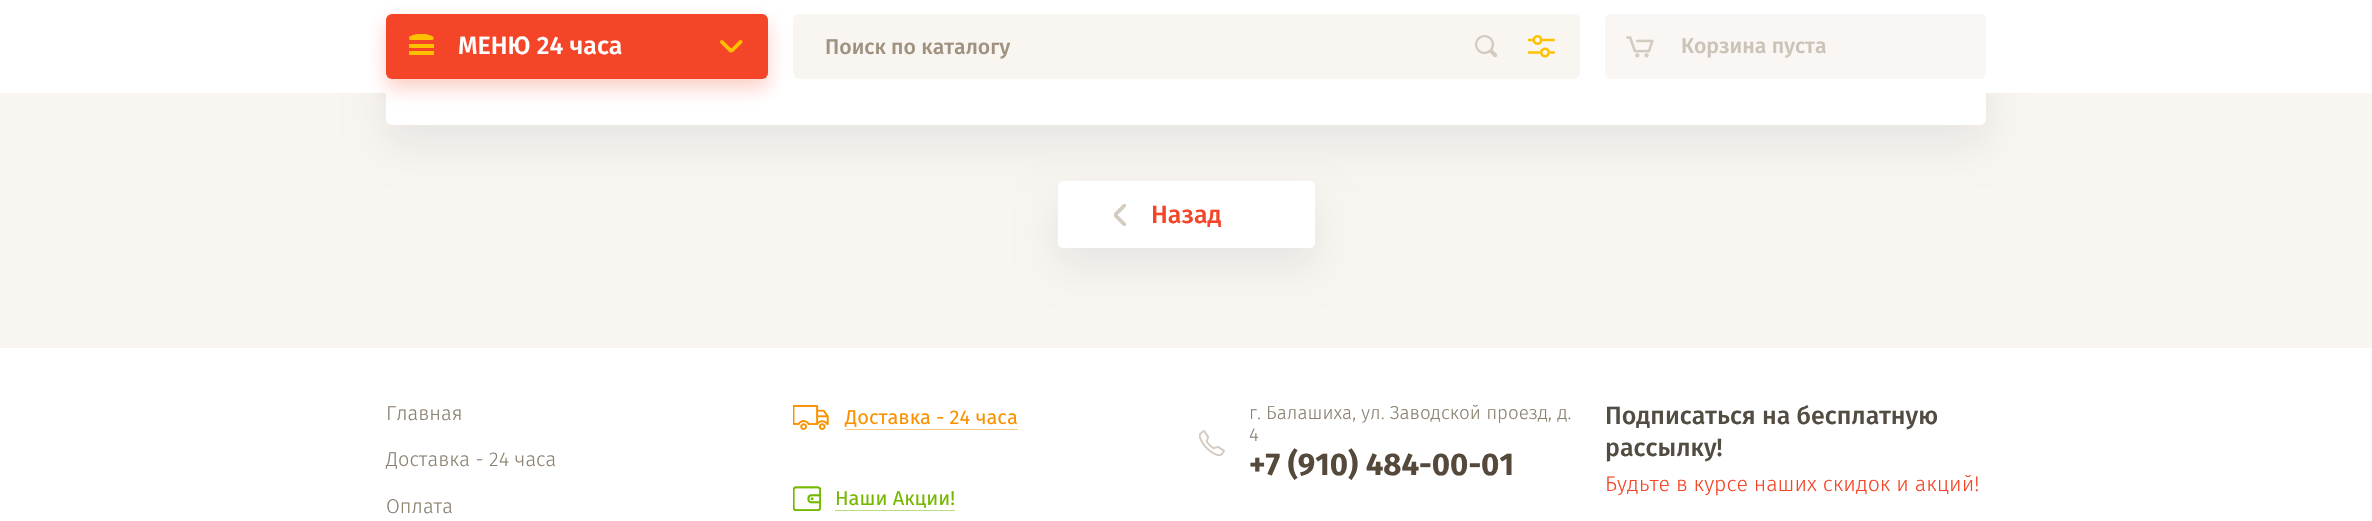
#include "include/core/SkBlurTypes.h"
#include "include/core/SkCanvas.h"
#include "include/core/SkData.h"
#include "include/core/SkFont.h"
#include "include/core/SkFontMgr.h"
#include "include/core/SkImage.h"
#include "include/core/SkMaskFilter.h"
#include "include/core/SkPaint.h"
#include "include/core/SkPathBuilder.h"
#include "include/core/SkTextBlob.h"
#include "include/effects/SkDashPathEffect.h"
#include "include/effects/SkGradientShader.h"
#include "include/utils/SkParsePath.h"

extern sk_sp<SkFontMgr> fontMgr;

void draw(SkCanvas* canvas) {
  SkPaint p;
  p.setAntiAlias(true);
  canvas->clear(SkColorSetRGB(249, 246, 242));
  p.setColor(SkColorSetARGB(18, 0, 0, 0));
  p.setMaskFilter(SkMaskFilter::MakeBlur(kNormal_SkBlurStyle, 19));
  canvas->drawRoundRect(SkRect::MakeLTRB(386, -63, 1986, 144), 6, 6, p);
  p.setMaskFilter(nullptr);
  p.setColor(SK_ColorWHITE);
  canvas->drawRoundRect(SkRect::MakeLTRB(386, -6, 1986, 125), 6, 6, p);
  canvas->drawRect(SkRect::MakeLTRB(0, 0, 2372, 93), p);
  p.setColor(SkColorSetARGB(69, 245, 69, 40));
  p.setMaskFilter(SkMaskFilter::MakeBlur(kNormal_SkBlurStyle, 9.5f));
  canvas->drawRoundRect(SkRect::MakeLTRB(386, 23, 768, 88), 6, 6, p);
  p.setMaskFilter(nullptr);
  p.setColor(SkColorSetRGB(245, 69, 40));
  canvas->drawRoundRect(SkRect::MakeLTRB(386, 14, 768, 79), 6, 6, p);
  p.setColor(SkColorSetRGB(255, 192, 0));
  canvas->drawRect(SkRect::MakeLTRB(409, 44, 434, 48), p);
  canvas->drawImageRect(SkImages::DeferredFromEncodedData(SkData::MakeFromFileName("images/1.png")), SkRect::MakeLTRB(409, 34, 434, 40), SkSamplingOptions());
  canvas->drawRect(SkRect::MakeLTRB(409, 51, 434, 55), p);
  canvas->drawImageRect(SkImages::DeferredFromEncodedData(SkData::MakeFromFileName("images/2.png")), SkRect::MakeLTRB(720, 40, 743, 53), SkSamplingOptions());
  p.setColor(SkColorSetRGB(249, 246, 242));
  canvas->drawRoundRect(SkRect::MakeLTRB(793, 14, 1580, 79), 6, 6, p);
  canvas->drawImageRect(SkImages::DeferredFromEncodedData(SkData::MakeFromFileName("images/3.png")), SkRect::MakeLTRB(1475, 35, 1498, 58), SkSamplingOptions());
  canvas->drawImageRect(SkImages::DeferredFromEncodedData(SkData::MakeFromFileName("images/4.png")), SkRect::MakeLTRB(1528, 35, 1555, 58), SkSamplingOptions());
  p.setColor(SkColorSetRGB(250, 246, 243));
  canvas->drawRoundRect(SkRect::MakeLTRB(1605, 14, 1986, 79), 6, 6, p);
  canvas->drawImageRect(SkImages::DeferredFromEncodedData(SkData::MakeFromFileName("images/5.png")), SkRect::MakeLTRB(1626, 36, 1654, 58), SkSamplingOptions());
  p.setColor(SkColorSetARGB(18, 0, 0, 0));
  p.setMaskFilter(SkMaskFilter::MakeBlur(kNormal_SkBlurStyle, 19));
  canvas->drawRoundRect(SkRect::MakeLTRB(1058, 200, 1315, 266), 5, 5, p);
  p.setMaskFilter(nullptr);
  p.setColor(SK_ColorWHITE);
  canvas->drawRoundRect(SkRect::MakeLTRB(1058, 181, 1315, 248), 5, 5, p);
  canvas->drawImageRect(SkImages::DeferredFromEncodedData(SkData::MakeFromFileName("images/6.png")), SkRect::MakeLTRB(1114, 204, 1126, 226), SkSamplingOptions());
  canvas->drawRect(SkRect::MakeLTRB(0, 348, 2372, 521), p);
  canvas->drawImageRect(SkImages::DeferredFromEncodedData(SkData::MakeFromFileName("images/7.png")), SkRect::MakeLTRB(793, 405, 829, 430), SkSamplingOptions());
  p.setColor(SkColorSetRGB(253, 201, 128));
  canvas->drawRect(SkRect::MakeLTRB(845, 429, 1018, 430), p);
  canvas->drawImageRect(SkImages::DeferredFromEncodedData(SkData::MakeFromFileName("images/8.png")), SkRect::MakeLTRB(793, 486, 821, 511), SkSamplingOptions());
  p.setColor(SkColorSetRGB(186, 220, 128));
  canvas->drawRect(SkRect::MakeLTRB(835, 510, 955, 511), p);
  canvas->drawImageRect(SkImages::DeferredFromEncodedData(SkData::MakeFromFileName("images/9.png")), SkRect::MakeLTRB(1199, 430, 1225, 456), SkSamplingOptions());
  SkFont font1(fontMgr->matchFamilyStyle("Fira Sans", SkFontStyle(500, SkFontStyle::kNormal_Width, SkFontStyle::kUpright_Slant)), 25);
  font1.setSubpixel(true);
  p.setColor(SK_ColorWHITE);
  canvas->drawString("МЕНЮ 24 часа", 458, 54, font1, p);
  SkFont font2(fontMgr->matchFamilyStyle("Fira Sans", SkFontStyle(500, SkFontStyle::kNormal_Width, SkFontStyle::kUpright_Slant)), 21.25f);
  font2.setSubpixel(true);
  p.setColor(SkColorSetRGB(159, 146, 128));
  canvas->drawString("Поиск по каталогу", 825, 54, font2, p);
  p.setColor(SkColorSetRGB(203, 194, 184));
  canvas->drawString("Корзина пуста", 1681, 53, font2, p);
  p.setColor(SkColorSetRGB(245, 69, 40));
  canvas->drawString("Назад", 1151, 223, font1, p);
  SkFont font3(fontMgr->matchFamilyStyle("Fira Sans", SkFontStyle(300, SkFontStyle::kNormal_Width, SkFontStyle::kUpright_Slant)), 20);
  font3.setSubpixel(true);
  p.setColor(SkColorSetRGB(140, 129, 113));
  canvas->drawString("Главная", 386, 420, font3, p);
  canvas->drawString("Доставка - 24 часа", 386, 466, font3, p);
  canvas->drawString("Оплата", 386, 513, font3, p);
  SkFont font4(fontMgr->matchFamilyStyle("Fira Sans", SkFontStyle::Normal()), 20);
  font4.setSubpixel(true);
  p.setColor(SkColorSetRGB(250, 146, 0));
  canvas->drawString("Доставка - 24 часа", 845, 424, font4, p);
  p.setColor(SkColorSetRGB(117, 184, 0));
  canvas->drawString("Наши Акции!", 835, 505, font4, p);
  SkFont font5(fontMgr->matchFamilyStyle("Fira Sans", SkFontStyle(300, SkFontStyle::kNormal_Width, SkFontStyle::kUpright_Slant)), 18.75f);
  font5.setSubpixel(true);
  p.setColor(SkColorSetRGB(140, 129, 113));
  canvas->drawString("г. Балашиха, ул. Заводской проезд, д.", 1249, 419, font5, p);
  canvas->drawString("4", 1249, 441, font5, p);
  SkFont font6(fontMgr->matchFamilyStyle("Fira Sans", SkFontStyle::Bold()), 31.25f);
  font6.setSubpixel(true);
  p.setColor(SkColorSetRGB(84, 73, 59));
  canvas->drawString("+7 (910) 484-00-01", 1249, 475, font6, p);
  p.setColor(SkColorSetRGB(83, 76, 66));
  canvas->drawString("Подписаться на бесплатную", 1605, 424, font1, p);
  canvas->drawString("рассылку!", 1605, 456, font1, p);
  SkFont font7(fontMgr->matchFamilyStyle("Fira Sans", SkFontStyle(300, SkFontStyle::kNormal_Width, SkFontStyle::kUpright_Slant)), 21.25f);
  font7.setSubpixel(true);
  p.setColor(SkColorSetRGB(245, 69, 40));
  canvas->drawString("Будьте в курсе наших скидок и акций!", 1605, 491, font7, p);
}
